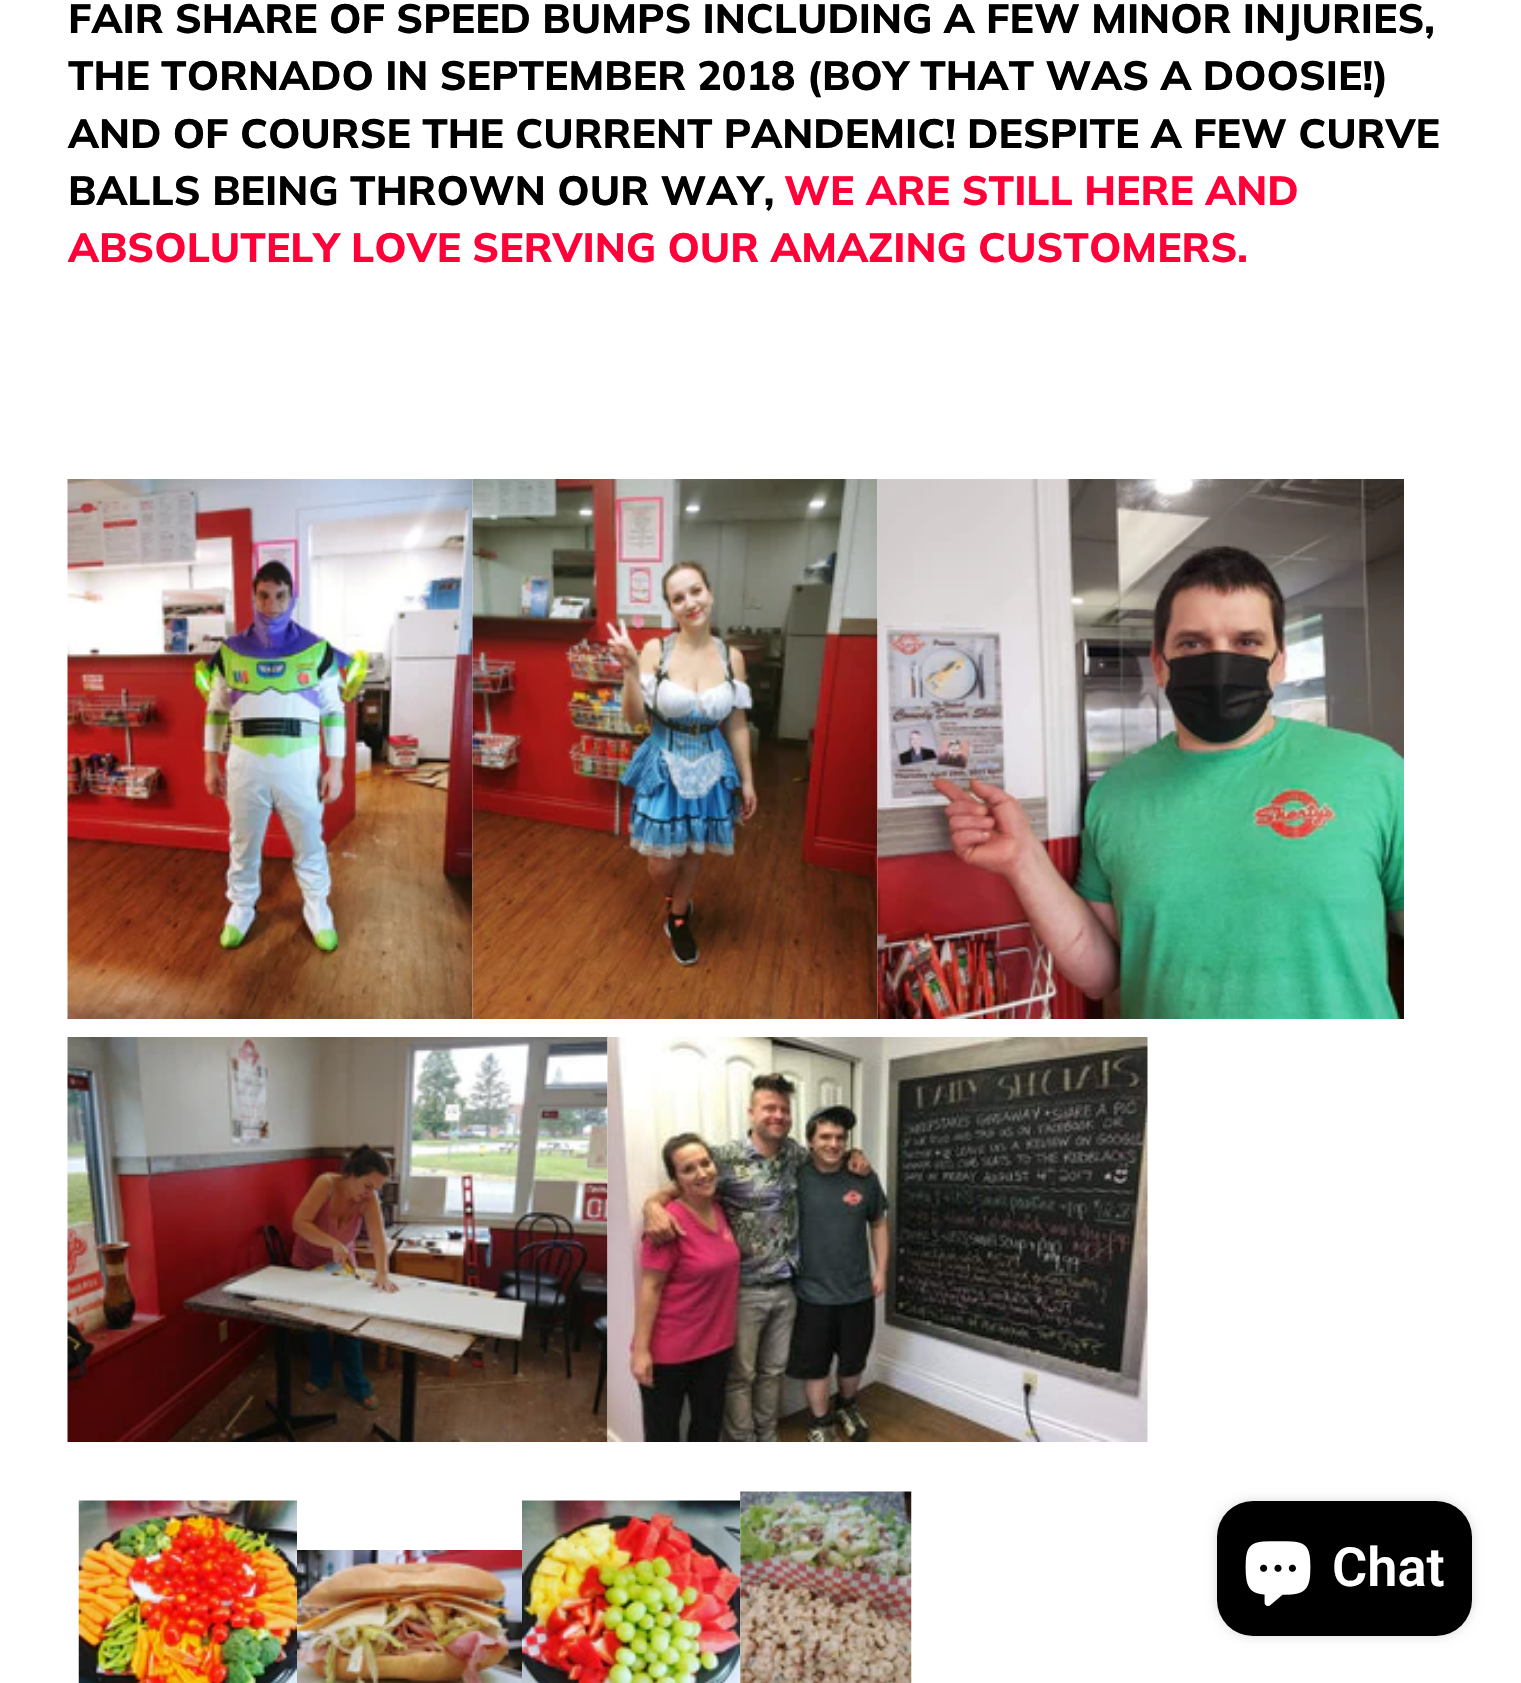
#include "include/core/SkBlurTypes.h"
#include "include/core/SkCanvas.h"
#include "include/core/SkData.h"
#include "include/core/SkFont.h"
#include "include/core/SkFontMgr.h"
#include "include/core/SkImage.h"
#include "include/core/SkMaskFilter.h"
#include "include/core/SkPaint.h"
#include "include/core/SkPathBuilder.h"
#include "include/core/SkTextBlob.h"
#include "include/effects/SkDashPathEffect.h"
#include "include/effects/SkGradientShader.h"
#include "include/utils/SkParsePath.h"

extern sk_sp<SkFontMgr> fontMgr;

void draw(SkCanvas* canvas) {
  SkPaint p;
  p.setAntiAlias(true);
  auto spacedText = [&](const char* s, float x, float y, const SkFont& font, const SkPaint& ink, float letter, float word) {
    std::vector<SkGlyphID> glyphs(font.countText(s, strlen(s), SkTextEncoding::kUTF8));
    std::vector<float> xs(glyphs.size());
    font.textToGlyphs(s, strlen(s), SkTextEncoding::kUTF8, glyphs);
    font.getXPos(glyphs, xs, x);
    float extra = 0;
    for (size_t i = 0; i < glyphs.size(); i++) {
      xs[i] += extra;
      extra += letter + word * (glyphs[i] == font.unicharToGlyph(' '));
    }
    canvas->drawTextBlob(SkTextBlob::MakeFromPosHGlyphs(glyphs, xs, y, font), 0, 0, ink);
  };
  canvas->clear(SK_ColorWHITE);
  canvas->drawImageRect(SkImages::DeferredFromEncodedData(SkData::MakeFromFileName("images/1.png")), SkRect::MakeLTRB(67, 479, 473, 1019), SkSamplingOptions());
  canvas->drawImageRect(SkImages::DeferredFromEncodedData(SkData::MakeFromFileName("images/2.png")), SkRect::MakeLTRB(472, 479, 878, 1019), SkSamplingOptions());
  canvas->drawImageRect(SkImages::DeferredFromEncodedData(SkData::MakeFromFileName("images/3.png")), SkRect::MakeLTRB(877, 479, 1404, 1019), SkSamplingOptions());
  canvas->drawImageRect(SkImages::DeferredFromEncodedData(SkData::MakeFromFileName("images/4.png")), SkRect::MakeLTRB(67, 1037, 608, 1442), SkSamplingOptions());
  canvas->drawImageRect(SkImages::DeferredFromEncodedData(SkData::MakeFromFileName("images/5.png")), SkRect::MakeLTRB(607, 1037, 1148, 1442), SkSamplingOptions());
  canvas->drawImageRect(SkImages::DeferredFromEncodedData(SkData::MakeFromFileName("images/6.png")), SkRect::MakeLTRB(78, 1500, 297, 1683), SkSamplingOptions());
  canvas->drawImageRect(SkImages::DeferredFromEncodedData(SkData::MakeFromFileName("images/7.png")), SkRect::MakeLTRB(297, 1550, 522, 1683), SkSamplingOptions());
  canvas->drawImageRect(SkImages::DeferredFromEncodedData(SkData::MakeFromFileName("images/8.png")), SkRect::MakeLTRB(522, 1500, 741, 1683), SkSamplingOptions());
  canvas->drawImageRect(SkImages::DeferredFromEncodedData(SkData::MakeFromFileName("images/9.png")), SkRect::MakeLTRB(740, 1491, 912, 1683), SkSamplingOptions());
  p.setColor(SkColorSetARGB(38, 0, 0, 0));
  p.setMaskFilter(SkMaskFilter::MakeBlur(kNormal_SkBlurStyle, 5.5f));
  canvas->drawRoundRect(SkRect::MakeLTRB(1217, 1501, 1472, 1636), 36, 36, p);
  p.setMaskFilter(nullptr);
  p.setColor(SK_ColorBLACK);
  canvas->drawRoundRect(SkRect::MakeLTRB(1217, 1501, 1472, 1636), 36, 36, p);
  canvas->drawImageRect(SkImages::DeferredFromEncodedData(SkData::MakeFromFileName("images/10.png")), SkRect::MakeLTRB(1245, 1541, 1311, 1606), SkSamplingOptions());
  SkFont font1(fontMgr->matchFamilyStyle("Muli", SkFontStyle(800, SkFontStyle::kNormal_Width, SkFontStyle::kUpright_Slant)), 40.8f);
  font1.setSubpixel(true);
  spacedText("FAIR SHARE OF SPEED BUMPS INCLUDING A FEW MINOR INJURIES,", 68, 33, font1, p, 0, -0.25f);
  spacedText("THE TORNADO IN SEPTEMBER 2018 (BOY THAT WAS A DOOSIE!)", 68, 90, font1, p, 0, -0.25f);
  spacedText("AND OF COURSE THE CURRENT PANDEMIC! DESPITE A FEW CURVE", 68, 148, font1, p, 0, -0.25f);
  canvas->drawString("BALLS BEING THROWN OUR WAY,", 68, 205, font1, p);
  p.setColor(SkColorSetRGB(255, 0, 57));
  canvas->drawString("WE ARE STILL HERE AND", 784, 205, font1, p);
  spacedText("ABSOLUTELY LOVE SERVING OUR AMAZING CUSTOMERS.", 68, 262, font1, p, 0, -0.25f);
  SkFont font2(fontMgr->matchFamilyStyle("Roboto", SkFontStyle(600, SkFontStyle::kNormal_Width, SkFontStyle::kUpright_Slant)), 54);
  font2.setSubpixel(true);
  p.setColor(SK_ColorWHITE);
  canvas->drawString("Chat", 1332, 1586, font2, p);
}
